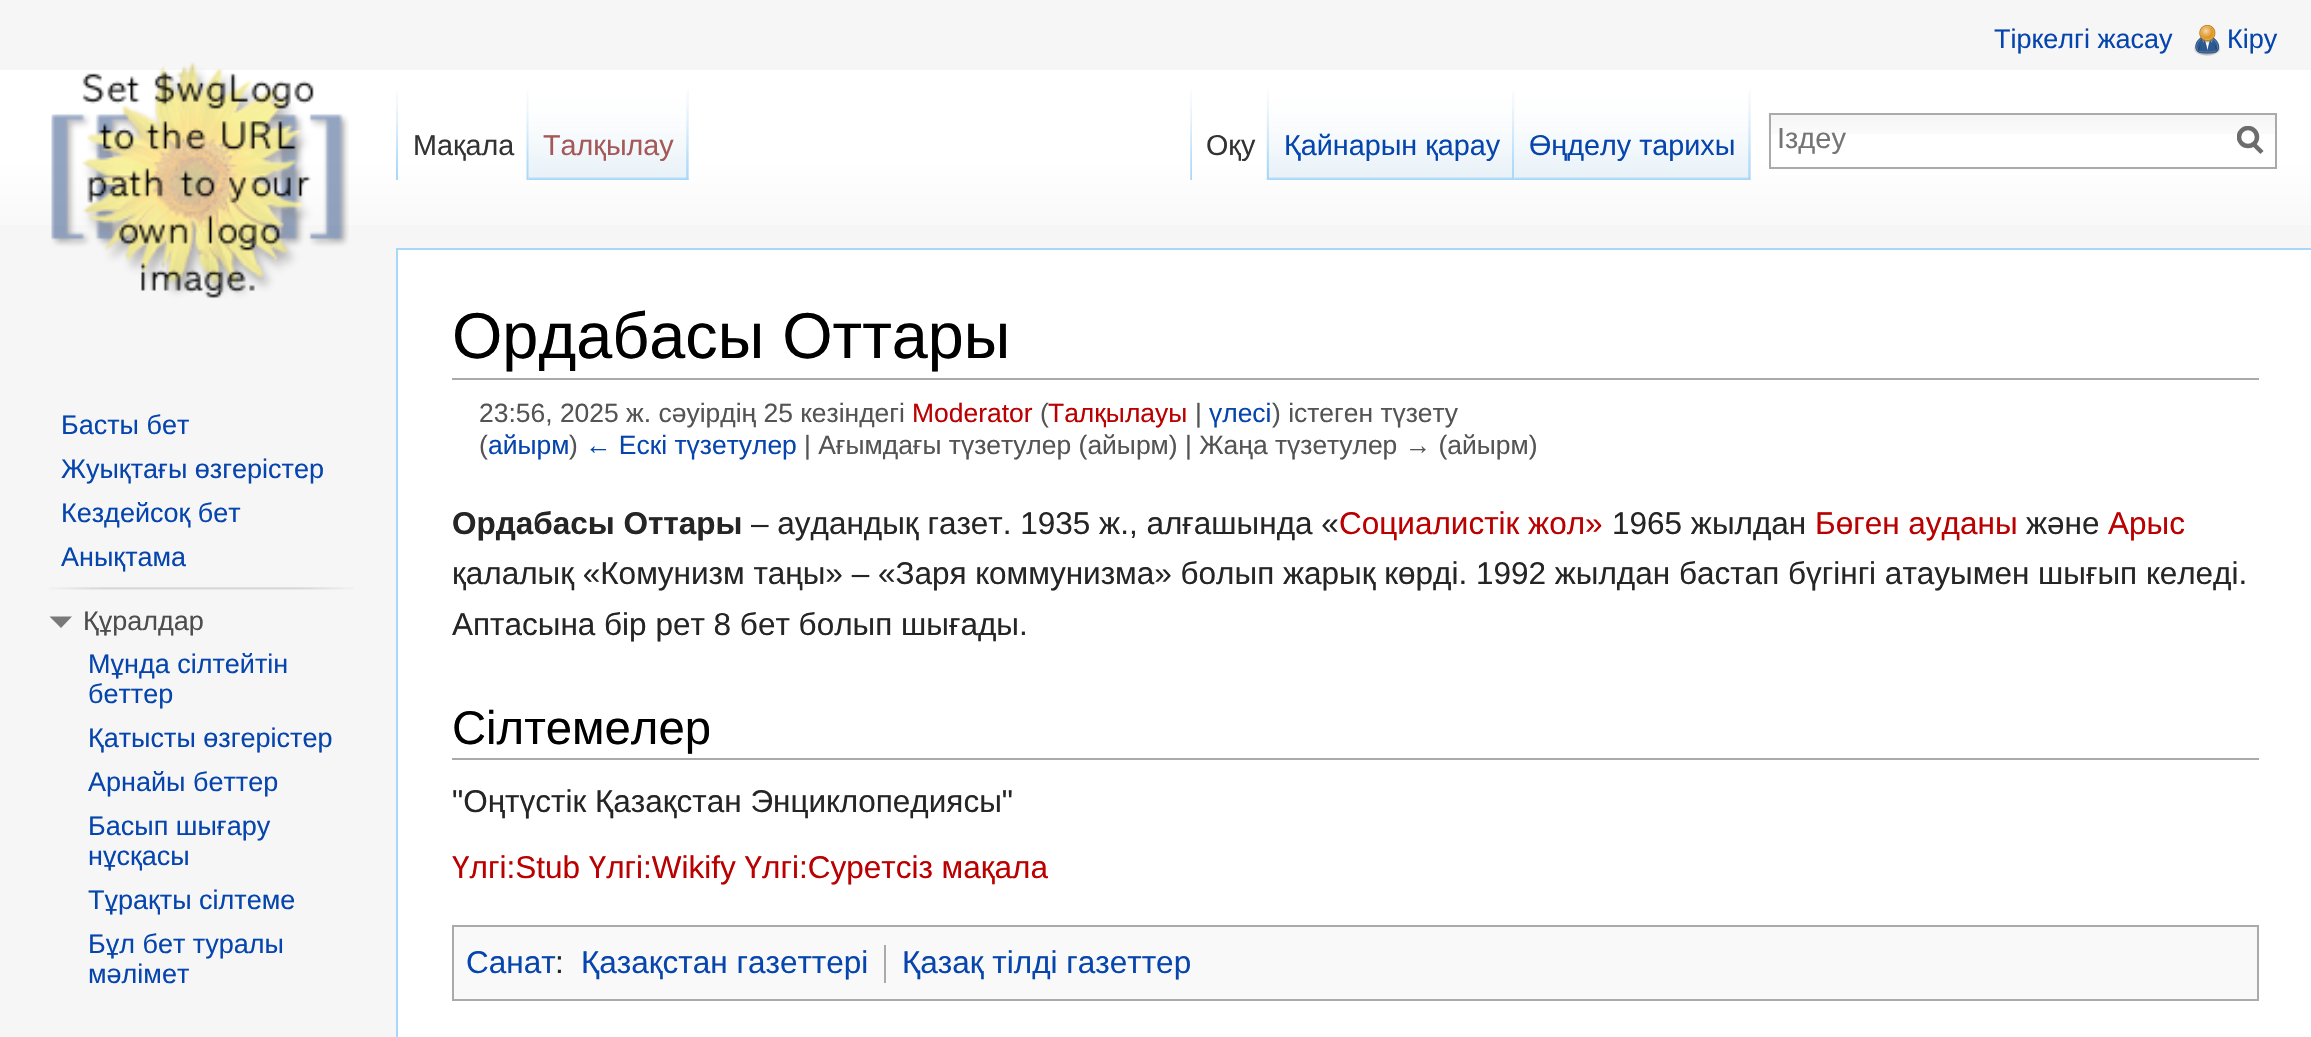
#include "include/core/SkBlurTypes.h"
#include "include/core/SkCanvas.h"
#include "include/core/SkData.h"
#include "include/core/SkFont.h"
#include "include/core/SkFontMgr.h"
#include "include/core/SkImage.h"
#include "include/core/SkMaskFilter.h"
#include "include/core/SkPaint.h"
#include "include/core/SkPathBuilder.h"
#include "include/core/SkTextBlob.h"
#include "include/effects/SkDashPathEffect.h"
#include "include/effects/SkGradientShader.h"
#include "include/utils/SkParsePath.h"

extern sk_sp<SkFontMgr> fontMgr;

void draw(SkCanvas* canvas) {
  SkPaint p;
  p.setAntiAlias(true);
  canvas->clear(SkColorSetRGB(246, 246, 246));
  canvas->drawImageRect(SkImages::DeferredFromEncodedData(SkData::MakeFromFileName("images/1.png")), SkRect::MakeLTRB(2194, 25, 2221, 56), SkSamplingOptions());
  {
    const SkColor colors[] = {SK_ColorWHITE, SkColorSetRGB(246, 246, 246)};
    const float stops[] = {0.5f, 1};
    const SkPoint ends[] = {{1157, 70}, {1157, 250}};
    p.setShader(SkGradientShader::MakeLinear(ends, colors, stops, 2, SkTileMode::kClamp));
    p.setAlpha(255);
  }
  canvas->drawRect(SkRect::MakeLTRB(0, 70, 2311, 225), p);
  canvas->drawImageRect(SkImages::DeferredFromEncodedData(SkData::MakeFromFileName("images/2.png")), SkRect::MakeLTRB(396, 90, 398, 180), SkSamplingOptions());
  canvas->drawImageRect(SkImages::DeferredFromEncodedData(SkData::MakeFromFileName("images/3.png")), SkRect::MakeLTRB(526, 91, 529, 180), SkSamplingOptions());
  p.setShader(nullptr);
  p.setColor(SkColorSetRGB(243, 243, 243));
  canvas->drawRect(SkRect::MakeLTRB(688, 90, 689, 180), p);
  canvas->drawImageRect(SkImages::DeferredFromEncodedData(SkData::MakeFromFileName("images/4.png")), SkRect::MakeLTRB(528, 90, 689, 180), SkSamplingOptions());
  canvas->drawImageRect(SkImages::DeferredFromEncodedData(SkData::MakeFromFileName("images/5.png")), SkRect::MakeLTRB(686, 91, 689, 180), SkSamplingOptions());
  canvas->drawImageRect(SkImages::DeferredFromEncodedData(SkData::MakeFromFileName("images/6.png")), SkRect::MakeLTRB(1190, 90, 1192, 180), SkSamplingOptions());
  canvas->drawImageRect(SkImages::DeferredFromEncodedData(SkData::MakeFromFileName("images/7.png")), SkRect::MakeLTRB(1266, 91, 1269, 180), SkSamplingOptions());
  canvas->drawImageRect(SkImages::DeferredFromEncodedData(SkData::MakeFromFileName("images/8.png")), SkRect::MakeLTRB(1269, 90, 1514, 180), SkSamplingOptions());
  canvas->drawImageRect(SkImages::DeferredFromEncodedData(SkData::MakeFromFileName("images/9.png")), SkRect::MakeLTRB(1512, 91, 1514, 180), SkSamplingOptions());
  canvas->drawRect(SkRect::MakeLTRB(1514, 90, 1751, 180), p);
  canvas->drawImageRect(SkImages::DeferredFromEncodedData(SkData::MakeFromFileName("images/10.png")), SkRect::MakeLTRB(1514, 90, 1751, 180), SkSamplingOptions());
  canvas->drawImageRect(SkImages::DeferredFromEncodedData(SkData::MakeFromFileName("images/5.png")), SkRect::MakeLTRB(1748, 91, 1751, 180), SkSamplingOptions());
  canvas->drawImageRect(SkImages::DeferredFromEncodedData(SkData::MakeFromFileName("images/11.png")), SkRect::MakeLTRB(1768, 115, 2275, 134), SkSamplingOptions());
  p.setStyle(SkPaint::kStroke_Style);
  p.setStrokeWidth(2);
  p.setColor(SkColorSetRGB(170, 170, 170));
  canvas->drawRect(SkRect::MakeLTRB(1770, 114, 2276, 168), p);
  p.setStrokeWidth(4.5f);
  p.setColor(SkColorSetRGB(108, 108, 108));
  canvas->drawPath(SkPathBuilder().moveTo(2262, 152.5f).lineTo(2253, 143.5f).detach(), p);
  canvas->save();
  canvas->clipRect(SkRect::MakeLTRB(2237, 126, 2264, 155));
  canvas->drawCircle(2248, 137, 9, p);
  canvas->restore();
  canvas->drawImageRect(SkImages::DeferredFromEncodedData(SkData::MakeFromFileName("images/12.png")), SkRect::MakeLTRB(51, 62, 349, 299), SkSamplingOptions());
  canvas->drawImageRect(SkImages::DeferredFromEncodedData(SkData::MakeFromFileName("images/13.png")), SkRect::MakeLTRB(49, 587, 354, 590), SkSamplingOptions());
  p.setStyle(SkPaint::kFill_Style);
  p.setColor(SkColorSetRGB(121, 121, 121));
  canvas->drawPath(SkPathBuilder().moveTo(72, 616.5f).lineTo(61, 628).lineTo(49.5f, 616.5f).close().detach(), p);
  p.setColor(SK_ColorWHITE);
  canvas->drawRect(SkRect::MakeLTRB(398, 250, 2311, 1037), p);
  p.setColor(SkColorSetRGB(167, 215, 249));
  canvas->drawRect(SkRect::MakeLTRB(396, 248, 2311, 250), p);
  canvas->drawRect(SkRect::MakeLTRB(396, 248, 398, 1037), p);
  p.setColor(SkColorSetRGB(170, 170, 170));
  canvas->drawRect(SkRect::MakeLTRB(452, 378, 2259, 380), p);
  canvas->drawRect(SkRect::MakeLTRB(452, 758, 2259, 760), p);
  p.setColor(SkColorSetRGB(249, 249, 249));
  canvas->drawRect(SkRect::MakeLTRB(453, 926, 2258, 1000), p);
  p.setStyle(SkPaint::kStroke_Style);
  p.setStrokeWidth(2);
  p.setColor(SkColorSetRGB(170, 170, 170));
  canvas->drawRect(SkRect::MakeLTRB(453, 926, 2258, 1000), p);
  p.setStyle(SkPaint::kFill_Style);
  canvas->drawRect(SkRect::MakeLTRB(884, 945, 886, 983), p);
  SkFont font1(fontMgr->matchFamilyStyle("Liberation Sans", SkFontStyle::Normal()), 27);
  font1.setSubpixel(true);
  p.setColor(SkColorSetRGB(6, 69, 173));
  canvas->drawString("Тіркелгі жасау", 1994, 48, font1, p);
  canvas->drawString("Кіру", 2227, 48, font1, p);
  SkFont font2(fontMgr->matchFamilyStyle("Liberation Sans", SkFontStyle::Normal()), 28.75f);
  font2.setSubpixel(true);
  p.setColor(SkColorSetRGB(51, 51, 51));
  canvas->drawString("Мақала", 413, 155, font2, p);
  p.setColor(SkColorSetRGB(165, 88, 88));
  canvas->drawString("Талқылау", 543, 155, font2, p);
  p.setColor(SkColorSetRGB(51, 51, 51));
  canvas->drawString("Оқу", 1206, 155, font2, p);
  p.setColor(SkColorSetRGB(6, 69, 173));
  canvas->drawString("Қайнарын қарау", 1284, 155, font2, p);
  canvas->drawString("Өңделу тарихы", 1529, 155, font2, p);
  SkFont font3(fontMgr->matchFamilyStyle("Liberation Sans", SkFontStyle::Normal()), 29);
  font3.setSubpixel(true);
  p.setColor(SkColorSetRGB(117, 117, 117));
  canvas->drawString("Іздеу", 1777, 148, font3, p);
  p.setColor(SkColorSetRGB(6, 69, 173));
  canvas->drawString("Басты бет", 61, 434, font1, p);
  canvas->drawString("Жуықтағы өзгерістер", 61, 478, font1, p);
  canvas->drawString("Кездейсоқ бет", 61, 522, font1, p);
  canvas->drawString("Анықтама", 61, 566, font1, p);
  p.setColor(SkColorSetRGB(77, 77, 77));
  canvas->drawString("Құралдар", 83, 630, font1, p);
  p.setColor(SkColorSetRGB(6, 69, 173));
  canvas->drawString("Мұнда сілтейтін", 88, 673, font1, p);
  canvas->drawString("беттер", 88, 703, font1, p);
  canvas->drawString("Қатысты өзгерістер", 88, 747, font1, p);
  canvas->drawString("Арнайы беттер", 88, 791, font1, p);
  canvas->drawString("Басып шығару", 88, 835, font1, p);
  canvas->drawString("нұсқасы", 88, 865, font1, p);
  canvas->drawString("Тұрақты сілтеме", 88, 909, font1, p);
  canvas->drawString("Бұл бет туралы", 88, 953, font1, p);
  canvas->drawString("мәлімет", 88, 983, font1, p);
  SkFont font4(fontMgr->matchFamilyStyle("Liberation Sans", SkFontStyle::Normal()), 64.75f);
  font4.setSubpixel(true);
  p.setColor(SK_ColorBLACK);
  canvas->drawString("Ордабасы Оттары", 452, 358, font4, p);
  SkFont font5(fontMgr->matchFamilyStyle("Liberation Sans", SkFontStyle::Normal()), 26.45f);
  font5.setSubpixel(true);
  p.setColor(SkColorSetRGB(84, 84, 84));
  canvas->drawString("23:56, 2025 ж. сәуірдің 25 кезіндегі", 479, 422, font5, p);
  p.setColor(SkColorSetRGB(186, 0, 0));
  canvas->drawString("Moderator", 912, 422, font5, p);
  p.setColor(SkColorSetRGB(84, 84, 84));
  canvas->drawString("(", 1040, 422, font5, p);
  p.setColor(SkColorSetRGB(186, 0, 0));
  canvas->drawString("Талқылауы", 1048, 422, font5, p);
  p.setColor(SkColorSetRGB(84, 84, 84));
  canvas->drawString("|", 1195, 422, font5, p);
  p.setColor(SkColorSetRGB(6, 69, 173));
  canvas->drawString("үлесі", 1209, 422, font5, p);
  p.setColor(SkColorSetRGB(84, 84, 84));
  canvas->drawString(") істеген түзету", 1272, 422, font5, p);
  canvas->drawString("(", 479, 454, font5, p);
  p.setColor(SkColorSetRGB(6, 69, 173));
  canvas->drawString("айырм", 488, 454, font5, p);
  p.setColor(SkColorSetRGB(84, 84, 84));
  canvas->drawString(")", 569, 454, font5, p);
  p.setColor(SkColorSetRGB(6, 69, 173));
  canvas->drawString("← Ескі түзетулер", 585, 454, font5, p);
  p.setColor(SkColorSetRGB(84, 84, 84));
  canvas->drawString("| Ағымдағы түзетулер (айырм) | Жаңа түзетулер → (айырм)", 804, 454, font5, p);
  SkFont font6(fontMgr->matchFamilyStyle("Liberation Sans", SkFontStyle::Bold()), 31.5f);
  font6.setSubpixel(true);
  p.setColor(SkColorSetRGB(37, 37, 37));
  canvas->drawString("Ордабасы Оттары", 452, 534, font6, p);
  SkFont font7(fontMgr->matchFamilyStyle("Liberation Sans", SkFontStyle::Normal()), 31.5f);
  font7.setSubpixel(true);
  canvas->drawString("– аудандық газет. 1935 ж., алғашында «", 751, 534, font7, p);
  p.setColor(SkColorSetRGB(186, 0, 0));
  canvas->drawString("Социалистік жол»", 1339, 534, font7, p);
  p.setColor(SkColorSetRGB(37, 37, 37));
  canvas->drawString("1965 жылдан", 1612, 534, font7, p);
  p.setColor(SkColorSetRGB(186, 0, 0));
  canvas->drawString("Бөген ауданы", 1815, 534, font7, p);
  p.setColor(SkColorSetRGB(37, 37, 37));
  canvas->drawString("және", 2026, 534, font7, p);
  p.setColor(SkColorSetRGB(186, 0, 0));
  canvas->drawString("Арыс", 2108, 534, font7, p);
  p.setColor(SkColorSetRGB(37, 37, 37));
  canvas->drawString("қалалық «Комунизм таңы» – «Заря коммунизма» болып жарық көрді. 1992 жылдан бастап бүгінгі атауымен шығып келеді.", 452, 584, font7, p);
  canvas->drawString("Аптасына бір рет 8 бет болып шығады.", 452, 635, font7, p);
  SkFont font8(fontMgr->matchFamilyStyle("Liberation Sans", SkFontStyle::Normal()), 47.25f);
  font8.setSubpixel(true);
  p.setColor(SK_ColorBLACK);
  canvas->drawString("Сілтемелер", 452, 744, font8, p);
  p.setColor(SkColorSetRGB(37, 37, 37));
  canvas->drawString("\"Оңтүстік Қазақстан Энциклопедиясы\"", 452, 812, font7, p);
  p.setColor(SkColorSetRGB(186, 0, 0));
  canvas->drawString("Үлгі:Stub Үлгі:Wikify Үлгі:Суретсіз мақала", 452, 878, font7, p);
  p.setColor(SkColorSetRGB(6, 69, 173));
  canvas->drawString("Санат", 466, 973, font7, p);
  p.setColor(SkColorSetRGB(37, 37, 37));
  canvas->drawString(":", 555, 973, font7, p);
  p.setColor(SkColorSetRGB(6, 69, 173));
  canvas->drawString("Қазақстан газеттері", 581, 973, font7, p);
  canvas->drawString("Қазақ тілді газеттер", 902, 973, font7, p);
}
